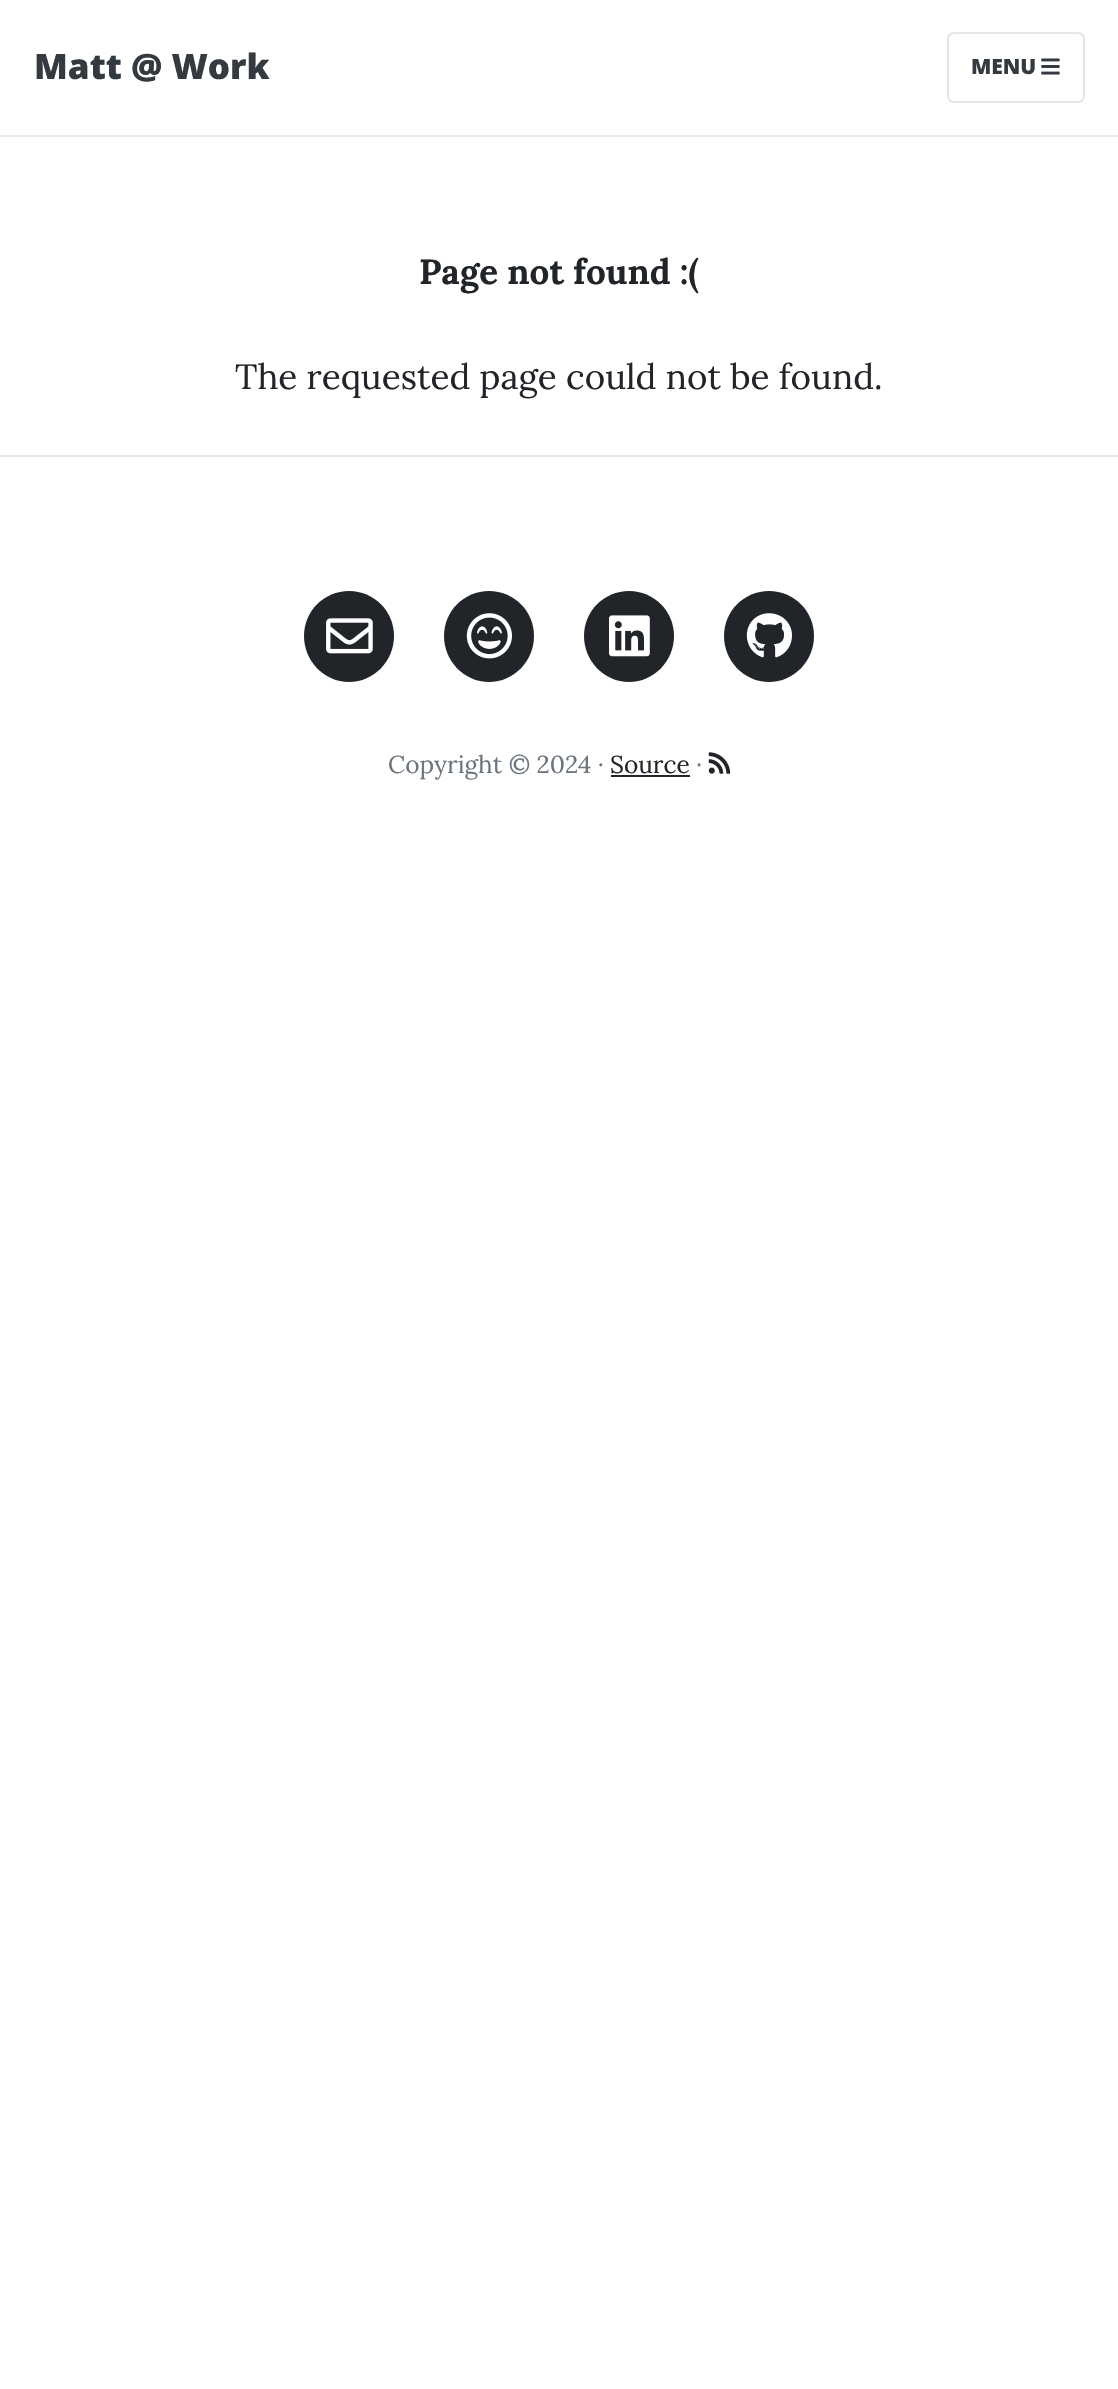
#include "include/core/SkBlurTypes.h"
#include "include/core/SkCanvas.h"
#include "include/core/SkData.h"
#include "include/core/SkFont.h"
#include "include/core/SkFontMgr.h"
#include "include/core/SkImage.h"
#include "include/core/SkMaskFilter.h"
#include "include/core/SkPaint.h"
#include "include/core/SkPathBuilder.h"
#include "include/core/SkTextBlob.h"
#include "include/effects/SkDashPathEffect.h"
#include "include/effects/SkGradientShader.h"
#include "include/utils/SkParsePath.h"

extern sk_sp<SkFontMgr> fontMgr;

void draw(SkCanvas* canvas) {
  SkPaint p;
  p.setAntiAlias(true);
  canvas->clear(SK_ColorWHITE);
  p.setColor(SkColorSetRGB(233, 236, 239));
  canvas->drawRect(SkRect::MakeLTRB(0, 135, 1118, 137), p);
  p.setStyle(SkPaint::kStroke_Style);
  p.setStrokeWidth(2);
  p.setColor(SkColorSetRGB(230, 230, 230));
  canvas->drawRoundRect(SkRect::MakeLTRB(948, 33, 1084, 102), 6, 6, p);
  canvas->drawImageRect(SkImages::DeferredFromEncodedData(SkData::MakeFromFileName("images/1.png")), SkRect::MakeLTRB(1041, 58, 1060, 75), SkSamplingOptions());
  p.setStyle(SkPaint::kFill_Style);
  canvas->drawRect(SkRect::MakeLTRB(0, 455, 1118, 457), p);
  p.setColor(SkColorSetRGB(33, 37, 41));
  canvas->drawPath(SkPathBuilder().moveTo(349, 591).cubicTo(324, 591, 304, 611, 304, 636).cubicTo(304, 661, 324, 682, 349, 682).cubicTo(374, 682, 394, 661, 394, 636).cubicTo(394, 611, 374, 591, 349, 591).close().detach(), p);
  canvas->drawImageRect(SkImages::DeferredFromEncodedData(SkData::MakeFromFileName("images/2.png")), SkRect::MakeLTRB(326, 618, 373, 654), SkSamplingOptions());
  canvas->drawPath(SkPathBuilder().moveTo(489, 591).cubicTo(464, 591, 444, 611, 444, 636).cubicTo(444, 661, 464, 682, 489, 682).cubicTo(514, 682, 534, 661, 534, 636).cubicTo(534, 611, 514, 591, 489, 591).close().detach(), p);
  canvas->drawImageRect(SkImages::DeferredFromEncodedData(SkData::MakeFromFileName("images/3.png")), SkRect::MakeLTRB(466, 613, 512, 659), SkSamplingOptions());
  canvas->drawPath(SkPathBuilder().moveTo(629, 591).cubicTo(604, 591, 584, 611, 584, 636).cubicTo(584, 661, 604, 682, 629, 682).cubicTo(654, 682, 674, 661, 674, 636).cubicTo(674, 611, 654, 591, 629, 591).close().detach(), p);
  canvas->drawImageRect(SkImages::DeferredFromEncodedData(SkData::MakeFromFileName("images/4.png")), SkRect::MakeLTRB(609, 615, 650, 657), SkSamplingOptions());
  canvas->drawPath(SkPathBuilder().moveTo(769, 591).cubicTo(744, 591, 724, 611, 724, 636).cubicTo(724, 661, 744, 682, 769, 682).cubicTo(794, 682, 814, 661, 814, 636).cubicTo(814, 611, 794, 591, 769, 591).close().detach(), p);
  canvas->drawImageRect(SkImages::DeferredFromEncodedData(SkData::MakeFromFileName("images/5.png")), SkRect::MakeLTRB(746, 613, 792, 658), SkSamplingOptions());
  canvas->drawRect(SkRect::MakeLTRB(611, 775, 690, 777), p);
  canvas->drawImageRect(SkImages::DeferredFromEncodedData(SkData::MakeFromFileName("images/6.png")), SkRect::MakeLTRB(708, 752, 731, 774), SkSamplingOptions());
  SkFont font1(fontMgr->matchFamilyStyle("Open Sans", SkFontStyle(800, SkFontStyle::kNormal_Width, SkFontStyle::kUpright_Slant)), 35);
  font1.setSubpixel(true);
  p.setColor(SkColorSetRGB(52, 58, 64));
  canvas->drawString("Matt @ Work", 34, 79, font1, p);
  SkFont font2(fontMgr->matchFamilyStyle("Open Sans", SkFontStyle(800, SkFontStyle::kNormal_Width, SkFontStyle::kUpright_Slant)), 21);
  font2.setSubpixel(true);
  canvas->drawString("MENU", 971, 74, font2, p);
  SkFont font3(fontMgr->matchFamilyStyle("Lora", SkFontStyle::Bold()), 35);
  font3.setSubpixel(true);
  p.setColor(SkColorSetRGB(33, 37, 41));
  canvas->drawString("Page not found :(", 419, 284, font3, p);
  SkFont font4(fontMgr->matchFamilyStyle("Lora", SkFontStyle::Normal()), 35);
  font4.setSubpixel(true);
  canvas->drawString("The requested page could not be found.", 235, 389, font4, p);
  SkFont font5(fontMgr->matchFamilyStyle("Lora", SkFontStyle::Normal()), 24.5f);
  font5.setSubpixel(true);
  p.setColor(SkColorSetRGB(108, 117, 125));
  canvas->drawString("Copyright © 2024 ·", 388, 773, font5, p);
  p.setColor(SkColorSetRGB(33, 37, 41));
  canvas->drawString("Source", 610, 773, font5, p);
  p.setColor(SkColorSetRGB(108, 117, 125));
  canvas->drawString("·", 696, 773, font5, p);
}
